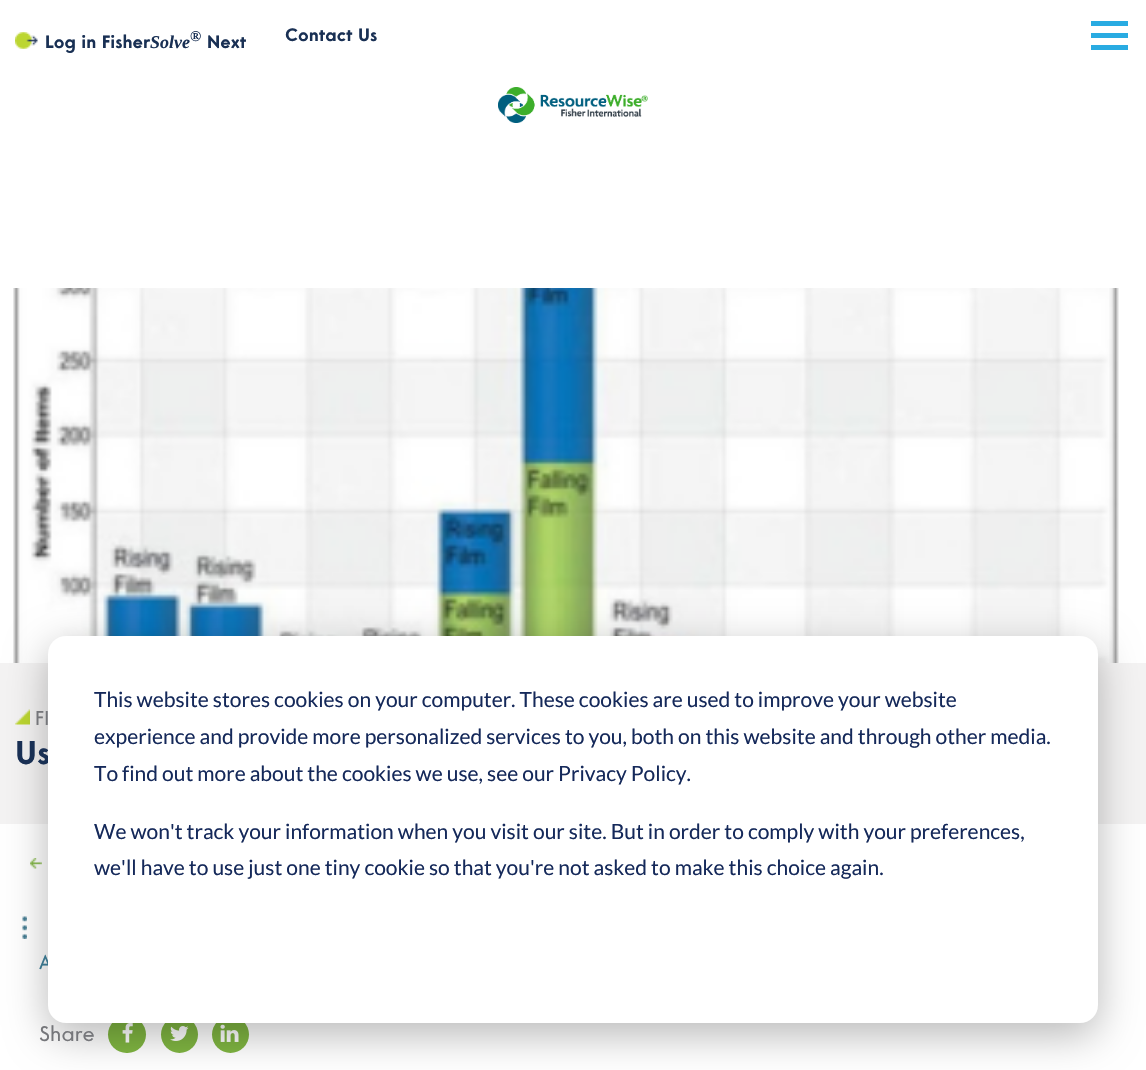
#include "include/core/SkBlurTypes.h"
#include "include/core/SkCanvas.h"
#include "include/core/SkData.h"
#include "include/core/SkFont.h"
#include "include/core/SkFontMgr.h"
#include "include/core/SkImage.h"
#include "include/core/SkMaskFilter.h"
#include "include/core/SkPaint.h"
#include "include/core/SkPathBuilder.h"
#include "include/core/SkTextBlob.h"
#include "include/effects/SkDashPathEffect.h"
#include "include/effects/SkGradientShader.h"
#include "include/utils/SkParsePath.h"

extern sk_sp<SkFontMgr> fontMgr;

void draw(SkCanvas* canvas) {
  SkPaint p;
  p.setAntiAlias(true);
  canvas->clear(SK_ColorWHITE);
  canvas->drawImageRect(SkImages::DeferredFromEncodedData(SkData::MakeFromFileName("images/1.png")), SkRect::MakeLTRB(15, 32, 38, 49), SkSamplingOptions());
  p.setColor(SkColorSetRGB(41, 171, 226));
  canvas->drawRect(SkRect::MakeLTRB(1091, 33, 1128, 38), p);
  canvas->drawRect(SkRect::MakeLTRB(1091, 21, 1128, 26), p);
  canvas->drawRect(SkRect::MakeLTRB(1091, 45, 1128, 50), p);
  canvas->drawImageRect(SkImages::DeferredFromEncodedData(SkData::MakeFromFileName("images/2.png")), SkRect::MakeLTRB(498, 87, 648, 123), SkSamplingOptions());
  p.setColor(SkColorSetRGB(244, 243, 243));
  canvas->drawRect(SkRect::MakeLTRB(0, 663, 1146, 824), p);
  canvas->drawImageRect(SkImages::DeferredFromEncodedData(SkData::MakeFromFileName("images/3.png")), SkRect::MakeLTRB(13, 288, 1119, 663), SkSamplingOptions());
  canvas->drawImageRect(SkImages::DeferredFromEncodedData(SkData::MakeFromFileName("images/4.png")), SkRect::MakeLTRB(15, 709, 30, 725), SkSamplingOptions());
  canvas->drawImageRect(SkImages::DeferredFromEncodedData(SkData::MakeFromFileName("images/5.png")), SkRect::MakeLTRB(30, 858, 42, 869), SkSamplingOptions());
  canvas->drawImageRect(SkImages::DeferredFromEncodedData(SkData::MakeFromFileName("images/6.png")), SkRect::MakeLTRB(22, 916, 27, 939), SkSamplingOptions());
  p.setColor(SkColorSetRGB(127, 181, 65));
  canvas->drawRoundRect(SkRect::MakeLTRB(108, 1016, 146, 1053), 18.5f, 18.5f, p);
  canvas->drawImageRect(SkImages::DeferredFromEncodedData(SkData::MakeFromFileName("images/7.png")), SkRect::MakeLTRB(122, 1023, 133, 1043), SkSamplingOptions());
  canvas->drawCircle(179.5f, 1034.5f, 18.5f, p);
  canvas->drawImageRect(SkImages::DeferredFromEncodedData(SkData::MakeFromFileName("images/8.png")), SkRect::MakeLTRB(170, 1026, 189, 1041), SkSamplingOptions());
  canvas->drawCircle(230.5f, 1034.5f, 18.5f, p);
  canvas->drawImageRect(SkImages::DeferredFromEncodedData(SkData::MakeFromFileName("images/9.png")), SkRect::MakeLTRB(220, 1024, 239, 1042), SkSamplingOptions());
  p.setColor(SkColorSetARGB(71, 0, 0, 0));
  p.setMaskFilter(SkMaskFilter::MakeBlur(kNormal_SkBlurStyle, 21));
  canvas->drawRoundRect(SkRect::MakeLTRB(48, 648, 1098, 1035), 18, 18, p);
  p.setMaskFilter(nullptr);
  SkFont font1(fontMgr->matchFamilyStyle("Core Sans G", SkFontStyle::Bold()), 18);
  font1.setSubpixel(true);
  p.setColor(SkColorSetRGB(25, 48, 84));
  canvas->drawString("Log in Fisher", 45, 48, font1, p);
  SkFont font2(fontMgr->matchFamilyStyle("Liberation Serif", SkFontStyle::BoldItalic()), 18);
  font2.setSubpixel(true);
  canvas->drawString("Solve", 150, 48, font2, p);
  SkFont font3(fontMgr->matchFamilyStyle("Liberation Serif", SkFontStyle::BoldItalic()), 15);
  font3.setSubpixel(true);
  canvas->drawString("®", 190, 41, font3, p);
  canvas->drawString("Next", 207, 48, font1, p);
  canvas->drawString("Contact Us", 285, 41, font1, p);
  SkFont font4(fontMgr->matchFamilyStyle("Core Sans G", SkFontStyle::Normal()), 20);
  font4.setSubpixel(true);
  p.setColor(SkColorSetRGB(117, 118, 122));
  canvas->drawString("FI", 35, 725, font4, p);
  SkFont font5(fontMgr->matchFamilyStyle("Core Sans G", SkFontStyle::Bold()), 33);
  font5.setSubpixel(true);
  p.setColor(SkColorSetRGB(25, 48, 84));
  canvas->drawString("Us", 15, 764, font5, p);
  p.setColor(SkColorSetRGB(56, 115, 138));
  canvas->drawString("A", 39, 969, font4, p);
  SkFont font6(fontMgr->matchFamilyStyle("Core Sans G", SkFontStyle::Normal()), 21);
  font6.setSubpixel(true);
  p.setColor(SkColorSetRGB(117, 118, 122));
  canvas->drawString("Share", 39, 1041, font6, p);
  p.setColor(SK_ColorWHITE);
  canvas->drawRoundRect(SkRect::MakeLTRB(48, 636, 1098, 1023), 18, 18, p);
  SkFont font7(fontMgr->matchFamilyStyle("Lato", SkFontStyle::Normal()), 21);
  font7.setSubpixel(true);
  p.setColor(SkColorSetRGB(21, 41, 90));
  canvas->drawString("This website stores cookies on your computer. These cookies are used to improve your website", 94, 707, font7, p);
  canvas->drawString("experience and provide more personalized services to you, both on this website and through other media.", 94, 744, font7, p);
  canvas->drawString("To find out more about the cookies we use, see our Privacy Policy.", 94, 781, font7, p);
  canvas->drawString("We won't track your information when you visit our site. But in order to comply with your preferences,", 94, 839, font7, p);
  canvas->drawString("we'll have to use just one tiny cookie so that you're not asked to make this choice again.", 94, 875, font7, p);
}
